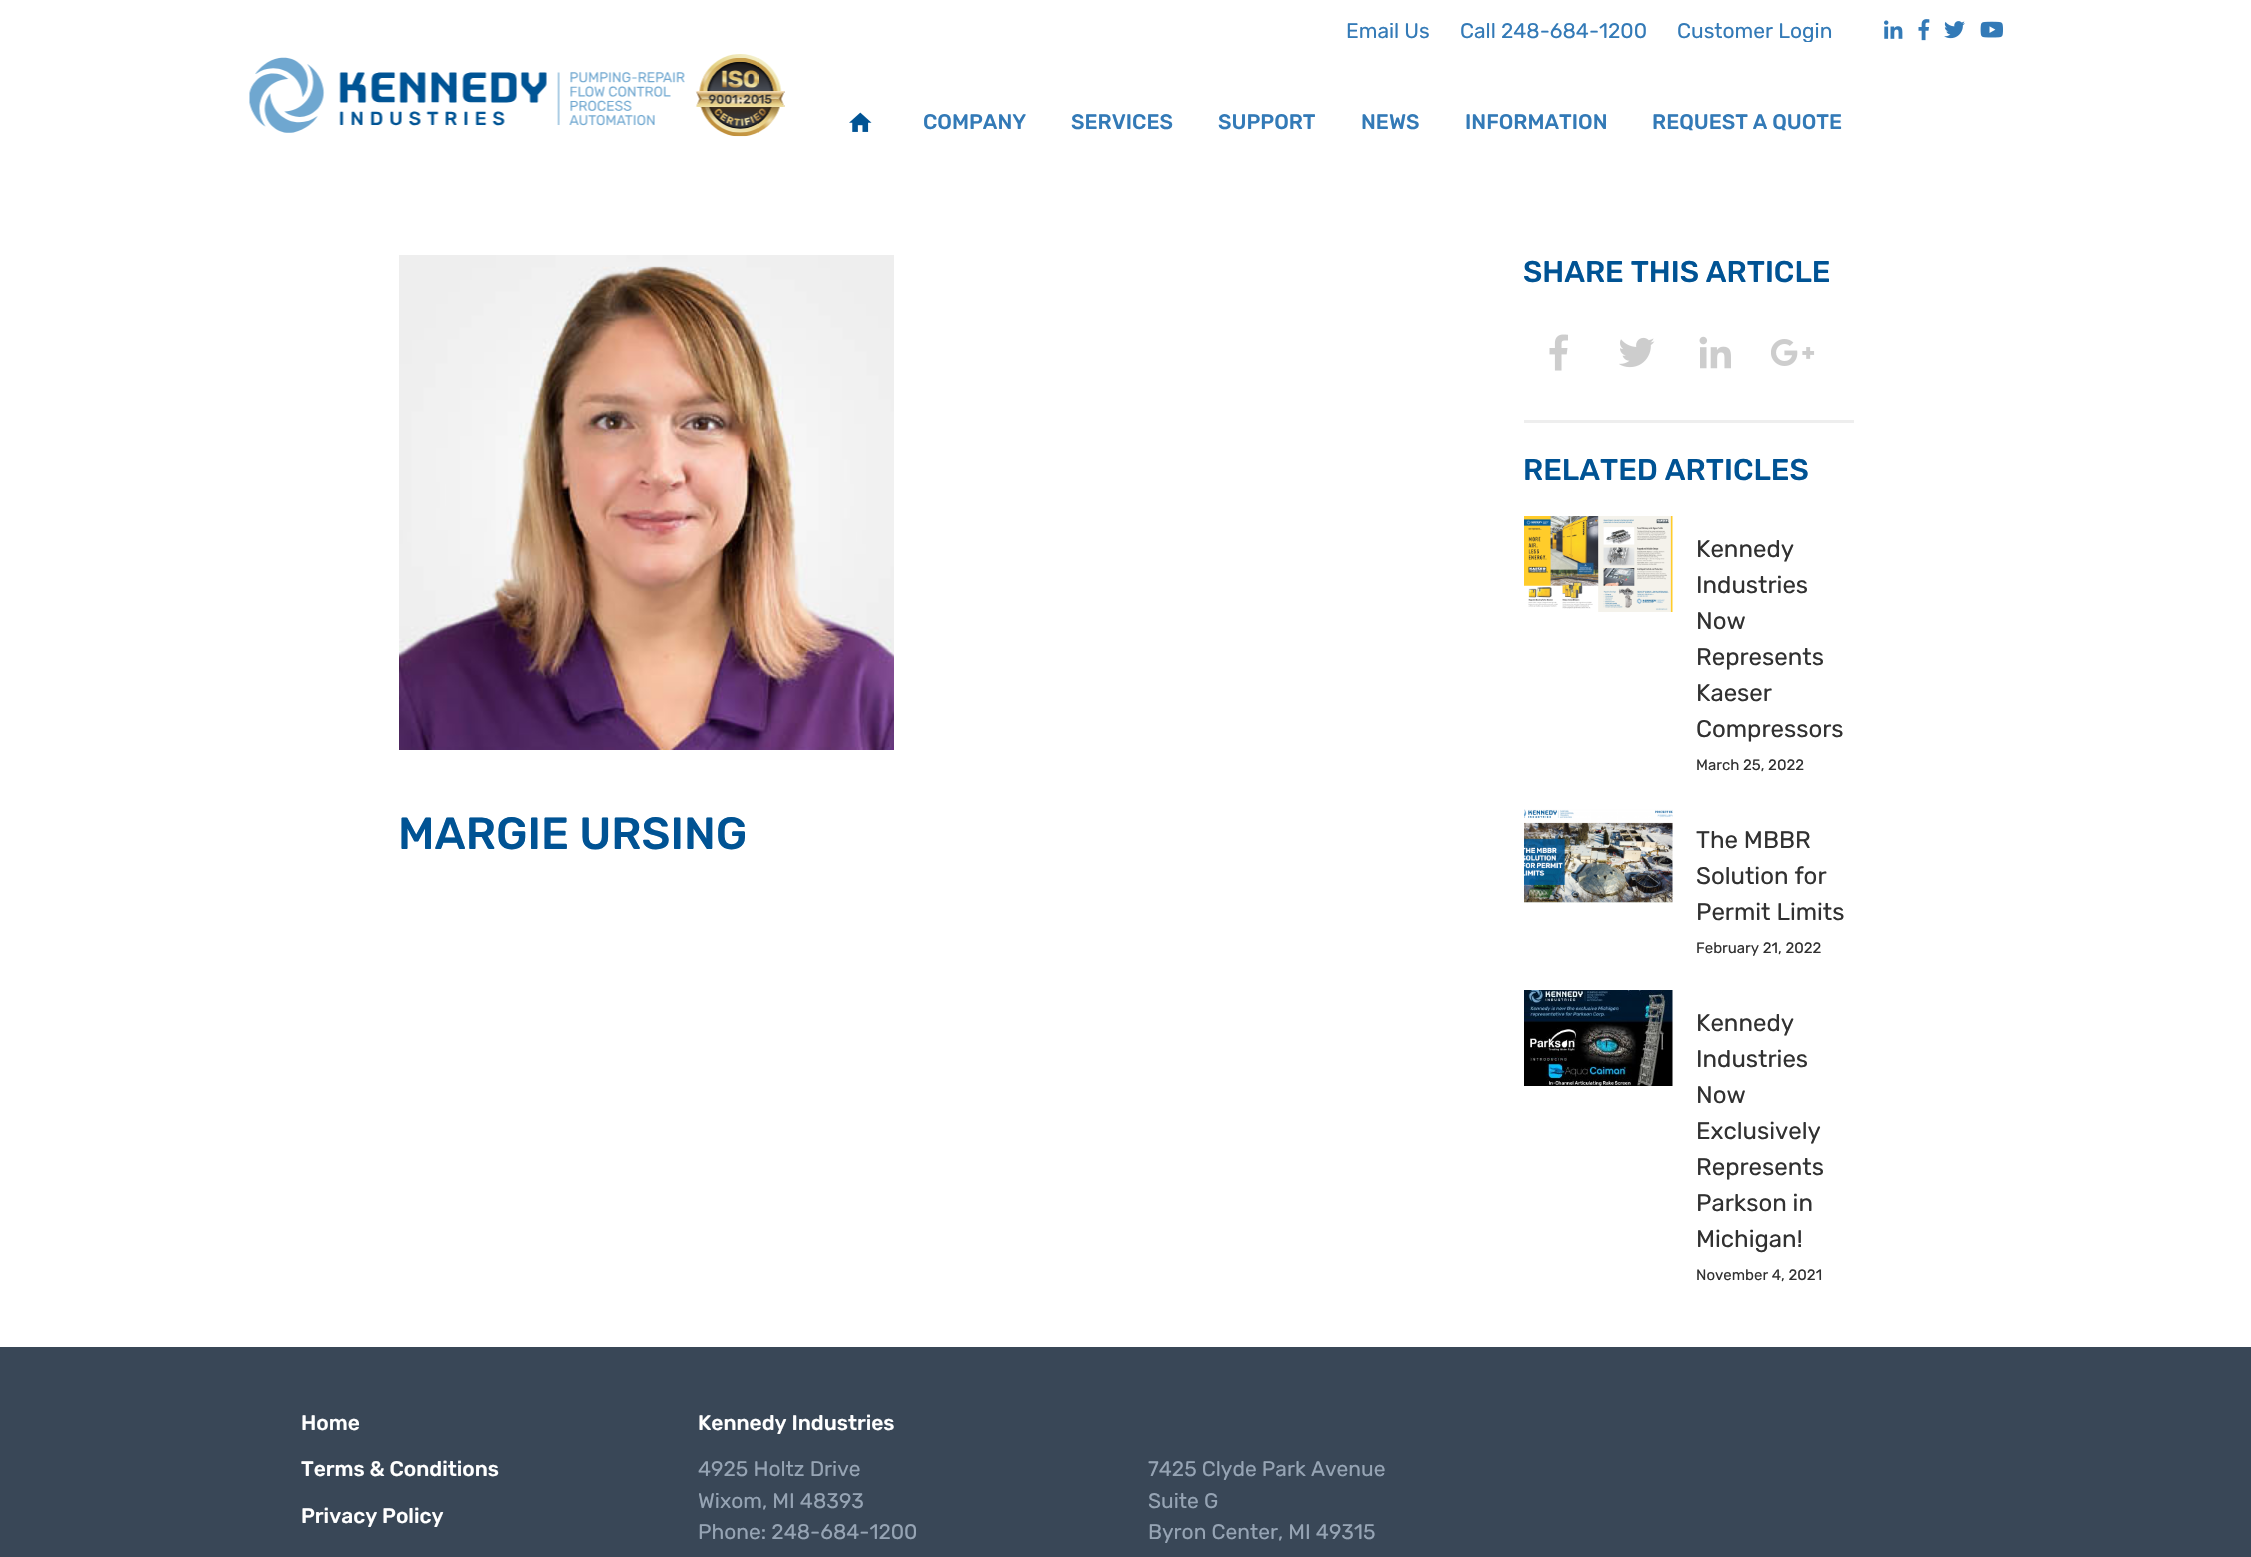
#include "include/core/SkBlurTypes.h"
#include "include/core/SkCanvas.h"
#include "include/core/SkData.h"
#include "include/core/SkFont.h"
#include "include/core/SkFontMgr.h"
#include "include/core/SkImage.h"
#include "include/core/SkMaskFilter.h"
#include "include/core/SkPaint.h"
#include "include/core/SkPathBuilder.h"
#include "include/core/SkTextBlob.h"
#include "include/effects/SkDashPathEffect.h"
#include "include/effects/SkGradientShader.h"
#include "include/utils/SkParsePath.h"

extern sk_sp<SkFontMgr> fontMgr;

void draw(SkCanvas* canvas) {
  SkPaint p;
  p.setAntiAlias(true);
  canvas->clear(SK_ColorWHITE);
  canvas->drawImageRect(SkImages::DeferredFromEncodedData(SkData::MakeFromFileName("images/1.png")), SkRect::MakeLTRB(1884, 20, 1903, 39), SkSamplingOptions());
  canvas->drawImageRect(SkImages::DeferredFromEncodedData(SkData::MakeFromFileName("images/2.png")), SkRect::MakeLTRB(1918, 19, 1930, 41), SkSamplingOptions());
  canvas->drawImageRect(SkImages::DeferredFromEncodedData(SkData::MakeFromFileName("images/3.png")), SkRect::MakeLTRB(1944, 21, 1965, 39), SkSamplingOptions());
  canvas->drawImageRect(SkImages::DeferredFromEncodedData(SkData::MakeFromFileName("images/4.png")), SkRect::MakeLTRB(1980, 21, 2003, 38), SkSamplingOptions());
  canvas->drawImageRect(SkImages::DeferredFromEncodedData(SkData::MakeFromFileName("images/5.png")), SkRect::MakeLTRB(249, 54, 785, 137), SkSamplingOptions());
  canvas->drawImageRect(SkImages::DeferredFromEncodedData(SkData::MakeFromFileName("images/6.png")), SkRect::MakeLTRB(849, 112, 872, 132), SkSamplingOptions());
  canvas->drawImageRect(SkImages::DeferredFromEncodedData(SkData::MakeFromFileName("images/7.png")), SkRect::MakeLTRB(399, 255, 894, 750), SkSamplingOptions());
  canvas->drawImageRect(SkImages::DeferredFromEncodedData(SkData::MakeFromFileName("images/8.png")), SkRect::MakeLTRB(1549, 334, 1568, 371), SkSamplingOptions());
  canvas->drawImageRect(SkImages::DeferredFromEncodedData(SkData::MakeFromFileName("images/9.png")), SkRect::MakeLTRB(1619, 337, 1655, 368), SkSamplingOptions());
  canvas->drawImageRect(SkImages::DeferredFromEncodedData(SkData::MakeFromFileName("images/10.png")), SkRect::MakeLTRB(1699, 336, 1731, 369), SkSamplingOptions());
  canvas->drawImageRect(SkImages::DeferredFromEncodedData(SkData::MakeFromFileName("images/11.png")), SkRect::MakeLTRB(1771, 339, 1815, 366), SkSamplingOptions());
  p.setColor(SkColorSetRGB(238, 238, 238));
  canvas->drawRect(SkRect::MakeLTRB(1524, 420, 1854, 423), p);
  canvas->drawImageRect(SkImages::DeferredFromEncodedData(SkData::MakeFromFileName("images/12.png")), SkRect::MakeLTRB(1524, 516, 1673, 612), SkSamplingOptions());
  canvas->drawImageRect(SkImages::DeferredFromEncodedData(SkData::MakeFromFileName("images/13.png")), SkRect::MakeLTRB(1524, 809, 1673, 903), SkSamplingOptions());
  canvas->drawImageRect(SkImages::DeferredFromEncodedData(SkData::MakeFromFileName("images/14.png")), SkRect::MakeLTRB(1524, 990, 1673, 1086), SkSamplingOptions());
  p.setColor(SkColorSetRGB(57, 71, 87));
  canvas->drawRect(SkRect::MakeLTRB(0, 1347, 2251, 1557), p);
  SkFont font1(fontMgr->matchFamilyStyle("Rubik", SkFontStyle::Normal()), 21);
  font1.setSubpixel(true);
  p.setColor(SkColorSetRGB(51, 122, 183));
  canvas->drawString("Email Us", 1346, 38, font1, p);
  canvas->drawString("Call 248-684-1200", 1460, 38, font1, p);
  canvas->save();
  canvas->clipRect(SkRect::MakeLTRB(0, 0, 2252, 42));
  canvas->drawString("Customer Login", 1677, 38, font1, p);
  canvas->restore();
  SkFont font2(fontMgr->matchFamilyStyle("Rubik", SkFontStyle(500, SkFontStyle::kNormal_Width, SkFontStyle::kUpright_Slant)), 21);
  font2.setSubpixel(true);
  canvas->drawString("COMPANY", 923, 129, font2, p);
  canvas->drawString("SERVICES", 1071, 129, font2, p);
  canvas->drawString("SUPPORT", 1218, 129, font2, p);
  canvas->drawString("NEWS", 1361, 129, font2, p);
  canvas->drawString("INFORMATION", 1465, 129, font2, p);
  canvas->drawString("REQUEST A QUOTE", 1652, 129, font2, p);
  SkFont font3(fontMgr->matchFamilyStyle("Rubik", SkFontStyle(500, SkFontStyle::kNormal_Width, SkFontStyle::kUpright_Slant)), 45);
  font3.setSubpixel(true);
  p.setColor(SkColorSetRGB(0, 83, 148));
  canvas->drawString("MARGIE URSING", 398, 849, font3, p);
  SkFont font4(fontMgr->matchFamilyStyle("Rubik", SkFontStyle(500, SkFontStyle::kNormal_Width, SkFontStyle::kUpright_Slant)), 30);
  font4.setSubpixel(true);
  canvas->drawString("SHARE THIS ARTICLE", 1523, 282, font4, p);
  canvas->drawString("RELATED ARTICLES", 1523, 480, font4, p);
  SkFont font5(fontMgr->matchFamilyStyle("Rubik", SkFontStyle::Normal()), 24);
  font5.setSubpixel(true);
  p.setColor(SkColorSetRGB(49, 49, 49));
  canvas->drawString("Kennedy", 1696, 557, font5, p);
  canvas->drawString("Industries", 1696, 593, font5, p);
  canvas->drawString("Now", 1696, 629, font5, p);
  canvas->drawString("Represents", 1696, 665, font5, p);
  canvas->drawString("Kaeser", 1696, 701, font5, p);
  canvas->drawString("Compressors", 1696, 737, font5, p);
  SkFont font6(fontMgr->matchFamilyStyle("Rubik", SkFontStyle::Normal()), 15);
  font6.setSubpixel(true);
  canvas->drawString("March 25, 2022", 1696, 770, font6, p);
  canvas->drawString("The MBBR", 1696, 848, font5, p);
  canvas->drawString("Solution for", 1696, 884, font5, p);
  canvas->drawString("Permit Limits", 1696, 920, font5, p);
  canvas->drawString("February 21, 2022", 1696, 953, font6, p);
  canvas->drawString("Kennedy", 1696, 1031, font5, p);
  canvas->drawString("Industries", 1696, 1067, font5, p);
  canvas->drawString("Now", 1696, 1103, font5, p);
  canvas->drawString("Exclusively", 1696, 1139, font5, p);
  canvas->drawString("Represents", 1696, 1175, font5, p);
  canvas->drawString("Parkson in", 1696, 1211, font5, p);
  canvas->drawString("Michigan!", 1696, 1247, font5, p);
  canvas->drawString("November 4, 2021", 1696, 1280, font6, p);
  p.setColor(SK_ColorWHITE);
  canvas->drawString("Home", 301, 1430, font2, p);
  canvas->drawString("Terms & Conditions", 301, 1476, font2, p);
  canvas->drawString("Privacy Policy", 301, 1523, font2, p);
  canvas->drawString("Kennedy Industries", 698, 1430, font2, p);
  p.setColor(SkColorSetRGB(150, 164, 180));
  canvas->drawString("4925 Holtz Drive", 698, 1476, font1, p);
  canvas->drawString("Wixom, MI 48393", 698, 1508, font1, p);
  canvas->drawString("Phone: 248-684-1200", 698, 1539, font1, p);
  canvas->drawString("7425 Clyde Park Avenue", 1148, 1476, font1, p);
  canvas->drawString("Suite G", 1148, 1508, font1, p);
  canvas->drawString("Byron Center, MI 49315", 1148, 1539, font1, p);
}
